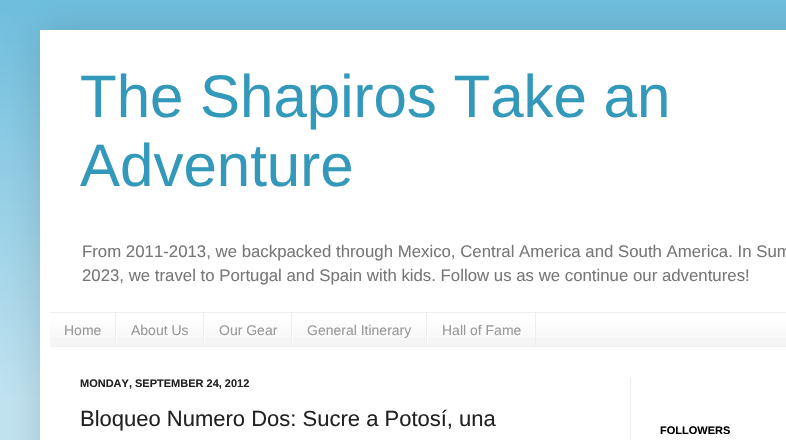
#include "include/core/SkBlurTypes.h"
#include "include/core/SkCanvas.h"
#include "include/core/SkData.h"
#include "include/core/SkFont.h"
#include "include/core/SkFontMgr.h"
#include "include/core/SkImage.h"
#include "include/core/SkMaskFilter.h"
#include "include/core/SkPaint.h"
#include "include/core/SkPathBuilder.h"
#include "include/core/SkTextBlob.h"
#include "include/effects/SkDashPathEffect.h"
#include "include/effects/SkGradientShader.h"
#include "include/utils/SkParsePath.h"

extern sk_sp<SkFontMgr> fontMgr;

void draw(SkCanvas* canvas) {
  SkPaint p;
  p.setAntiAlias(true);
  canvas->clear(SkColorSetRGB(194, 228, 241));
  p.setColor(SkColorSetRGB(102, 187, 221));
  canvas->drawRect(SkRect::MakeLTRB(0, 0, 786, 400), p);
  canvas->drawImageRect(SkImages::DeferredFromEncodedData(SkData::MakeFromFileName("images/1.png")), SkRect::MakeLTRB(0, 0, 786, 400), SkSamplingOptions());
  p.setColor(SkColorSetARGB(38, 0, 0, 0));
  p.setMaskFilter(SkMaskFilter::MakeBlur(kNormal_SkBlurStyle, 20));
  canvas->drawRect(SkRect::MakeLTRB(40, 30, 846, 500), p);
  p.setMaskFilter(nullptr);
  p.setColor(SK_ColorWHITE);
  canvas->drawRect(SkRect::MakeLTRB(40, 30, 786, 440), p);
  p.setColor(SkColorSetRGB(245, 245, 245));
  canvas->drawRect(SkRect::MakeLTRB(50, 314, 786, 346), p);
  canvas->drawImageRect(SkImages::DeferredFromEncodedData(SkData::MakeFromFileName("images/2.png")), SkRect::MakeLTRB(50, 313, 786, 337), SkSamplingOptions());
  p.setColor(SkColorSetRGB(238, 238, 238));
  canvas->drawRect(SkRect::MakeLTRB(50, 312, 786, 313), p);
  canvas->drawRect(SkRect::MakeLTRB(50, 346, 786, 347), p);
  canvas->drawRect(SkRect::MakeLTRB(115, 313, 116, 346), p);
  canvas->drawRect(SkRect::MakeLTRB(203, 313, 204, 346), p);
  p.setColor(SK_ColorWHITE);
  canvas->drawRect(SkRect::MakeLTRB(116, 324, 117, 346), p);
  p.setColor(SkColorSetRGB(238, 238, 238));
  canvas->drawRect(SkRect::MakeLTRB(291, 313, 292, 346), p);
  p.setColor(SK_ColorWHITE);
  canvas->drawRect(SkRect::MakeLTRB(204, 324, 205, 346), p);
  p.setColor(SkColorSetRGB(238, 238, 238));
  canvas->drawRect(SkRect::MakeLTRB(426, 313, 427, 346), p);
  p.setColor(SK_ColorWHITE);
  canvas->drawRect(SkRect::MakeLTRB(292, 324, 293, 346), p);
  p.setColor(SkColorSetRGB(238, 238, 238));
  canvas->drawRect(SkRect::MakeLTRB(535, 313, 536, 346), p);
  p.setColor(SK_ColorWHITE);
  canvas->drawRect(SkRect::MakeLTRB(427, 324, 428, 346), p);
  p.setColor(SkColorSetRGB(238, 238, 238));
  canvas->drawRect(SkRect::MakeLTRB(630, 377, 631, 440), p);
  SkFont font1(fontMgr->matchFamilyStyle("Liberation Sans", SkFontStyle::Normal()), 60);
  font1.setSubpixel(true);
  p.setColor(SkColorSetRGB(51, 153, 187));
  canvas->drawString("The Shapiros Take an", 80, 117, font1, p);
  canvas->drawString("Adventure", 80, 186, font1, p);
  SkFont font2(fontMgr->matchFamilyStyle("Liberation Sans", SkFontStyle::Normal()), 16.8f);
  font2.setSubpixel(true);
  p.setColor(SkColorSetRGB(119, 119, 119));
  canvas->drawString("From 2011-2013, we backpacked through Mexico, Central America and South America. In Sum", 82, 257, font2, p);
  canvas->drawString("2023, we travel to Portugal and Spain with kids. Follow us as we continue our adventures!", 82, 281, font2, p);
  SkFont font3(fontMgr->matchFamilyStyle("Liberation Sans", SkFontStyle::Normal()), 14);
  font3.setSubpixel(true);
  p.setColor(SkColorSetRGB(153, 153, 153));
  canvas->drawString("Home", 64, 335, font3, p);
  canvas->drawString("About Us", 131, 335, font3, p);
  canvas->drawString("Our Gear", 219, 335, font3, p);
  canvas->drawString("General Itinerary", 307, 335, font3, p);
  canvas->drawString("Hall of Fame", 442, 335, font3, p);
  SkFont font4(fontMgr->matchFamilyStyle("Liberation Sans", SkFontStyle::Bold()), 11);
  font4.setSubpixel(true);
  p.setColor(SkColorSetRGB(34, 34, 34));
  canvas->drawString("MONDAY, SEPTEMBER 24, 2012", 80, 387, font4, p);
  SkFont font5(fontMgr->matchFamilyStyle("Liberation Sans", SkFontStyle::Normal()), 22);
  font5.setSubpixel(true);
  canvas->drawString("Bloqueo Numero Dos: Sucre a Potosí, una", 80, 426, font5, p);
  p.setColor(SK_ColorBLACK);
  canvas->drawString("FOLLOWERS", 660, 434, font4, p);
}
